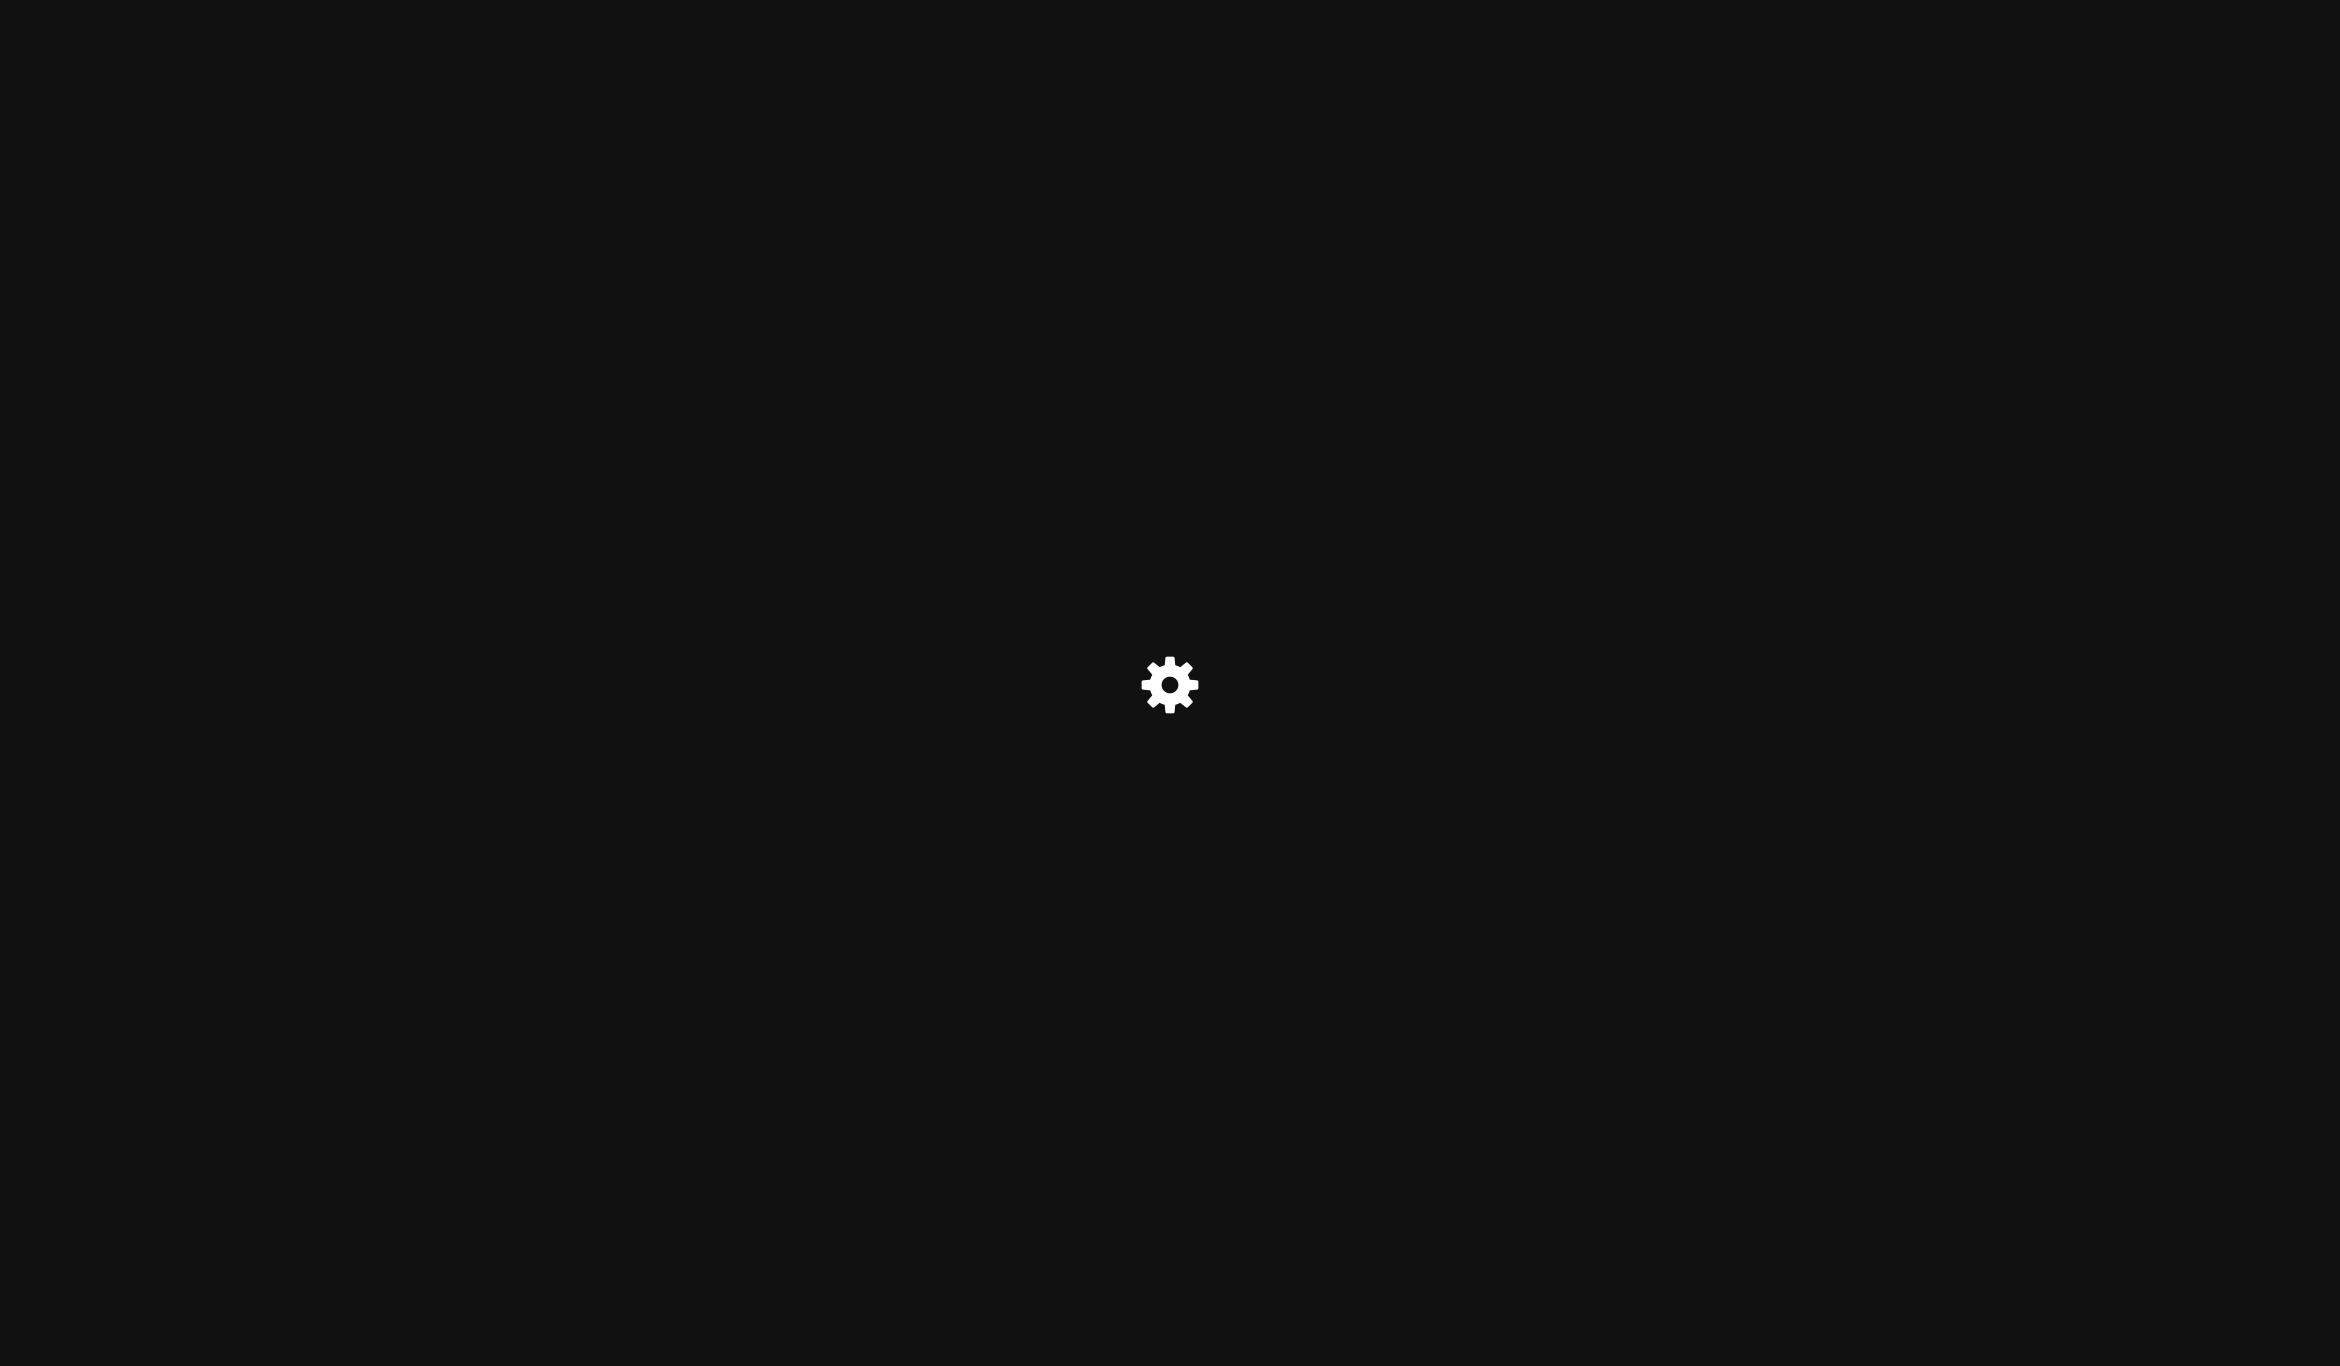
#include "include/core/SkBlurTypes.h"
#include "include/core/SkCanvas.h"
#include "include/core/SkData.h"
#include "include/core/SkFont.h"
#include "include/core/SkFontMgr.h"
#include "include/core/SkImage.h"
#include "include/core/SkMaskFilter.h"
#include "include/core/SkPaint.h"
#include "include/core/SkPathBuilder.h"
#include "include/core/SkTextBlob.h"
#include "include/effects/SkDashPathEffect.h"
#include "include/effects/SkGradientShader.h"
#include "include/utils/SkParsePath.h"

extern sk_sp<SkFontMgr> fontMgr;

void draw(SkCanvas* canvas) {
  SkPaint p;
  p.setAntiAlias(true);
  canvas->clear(SkColorSetRGB(17, 17, 17));
  canvas->drawImageRect(SkImages::DeferredFromEncodedData(SkData::MakeFromFileName("images/1.png")), SkRect::MakeLTRB(1141, 656, 1199, 714), SkSamplingOptions());
}
